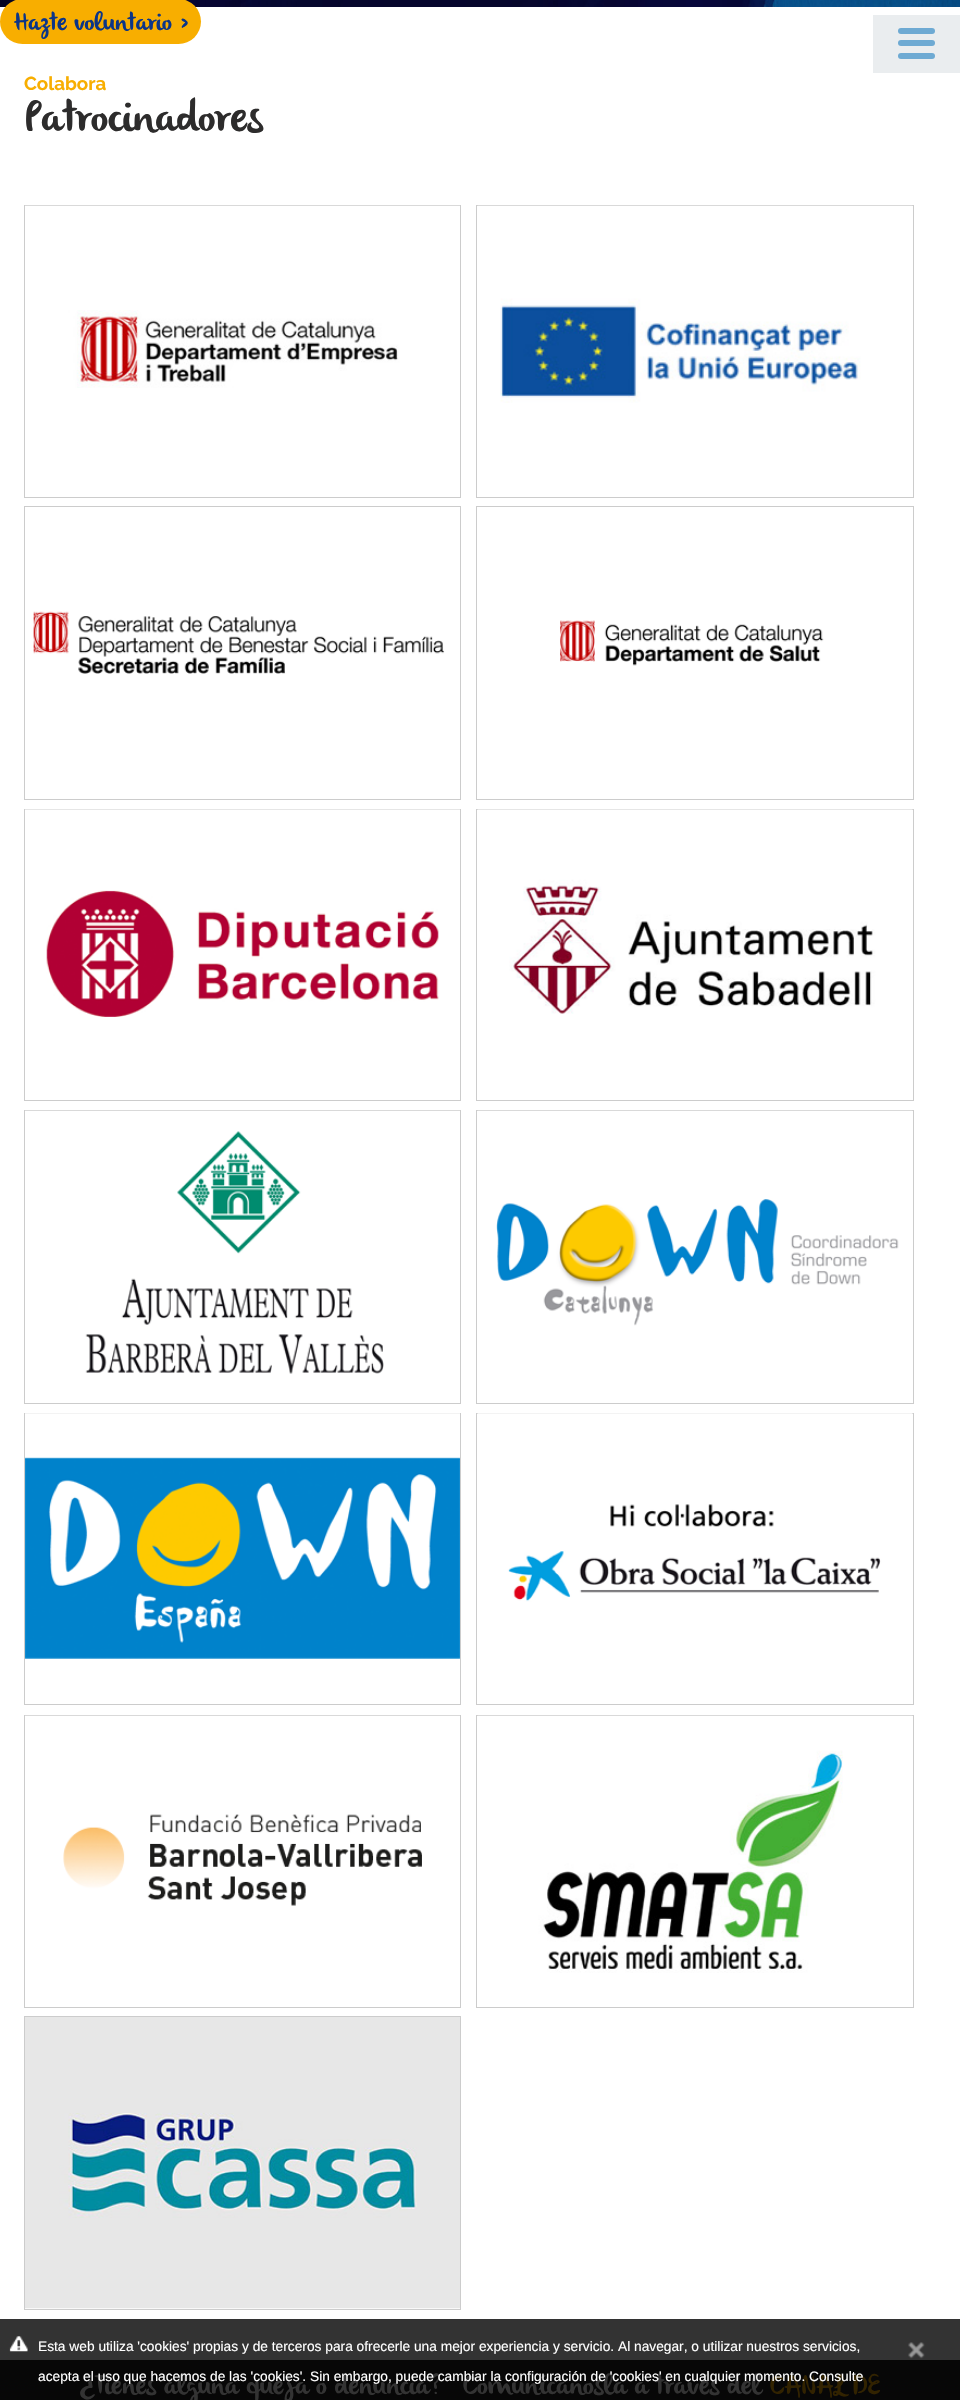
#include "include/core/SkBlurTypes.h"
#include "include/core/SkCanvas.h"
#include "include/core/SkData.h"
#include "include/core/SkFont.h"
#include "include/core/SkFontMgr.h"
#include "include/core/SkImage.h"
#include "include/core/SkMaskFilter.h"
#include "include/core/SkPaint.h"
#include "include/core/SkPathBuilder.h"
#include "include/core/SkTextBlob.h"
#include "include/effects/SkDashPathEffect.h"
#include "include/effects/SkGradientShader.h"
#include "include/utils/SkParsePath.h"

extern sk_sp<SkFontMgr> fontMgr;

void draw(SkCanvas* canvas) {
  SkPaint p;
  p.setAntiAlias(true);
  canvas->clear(SK_ColorWHITE);
  p.setColor(SkColorSetRGB(51, 51, 51));
  canvas->drawRect(SkRect::MakeLTRB(0, 2319, 960, 2360), p);
  canvas->drawImageRect(SkImages::DeferredFromEncodedData(SkData::MakeFromFileName("images/1.png")), SkRect::MakeLTRB(0, 0, 960, 7), SkSamplingOptions());
  p.setColor(SkColorSetRGB(248, 174, 0));
  canvas->drawRoundRect(SkRect::MakeLTRB(0, -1, 201, 44), 22.5f, 22.5f, p);
  p.setColor(SkColorSetRGB(234, 237, 239));
  canvas->drawRect(SkRect::MakeLTRB(873, 15, 960, 73), p);
  p.setColor(SkColorSetRGB(110, 170, 211));
  canvas->drawRoundRect(SkRect::MakeLTRB(898, 28, 935, 34), 3, 3, p);
  canvas->drawRoundRect(SkRect::MakeLTRB(898, 40, 935, 46), 3, 3, p);
  canvas->drawRoundRect(SkRect::MakeLTRB(898, 53, 935, 59), 3, 3, p);
  p.setStyle(SkPaint::kStroke_Style);
  p.setStrokeWidth(1);
  p.setColor(SkColorSetRGB(204, 204, 204));
  canvas->drawRect(SkRect::MakeLTRB(24.5f, 205.5f, 460.5f, 497.5f), p);
  canvas->drawImageRect(SkImages::DeferredFromEncodedData(SkData::MakeFromFileName("images/2.png")), SkRect::MakeLTRB(25, 205, 460, 388), SkSamplingOptions());
  canvas->drawRect(SkRect::MakeLTRB(476.5f, 205.5f, 913.5f, 497.5f), p);
  canvas->drawImageRect(SkImages::DeferredFromEncodedData(SkData::MakeFromFileName("images/3.png")), SkRect::MakeLTRB(477, 205, 913, 403), SkSamplingOptions());
  canvas->drawRect(SkRect::MakeLTRB(24.5f, 506.5f, 460.5f, 799.5f), p);
  canvas->drawRect(SkRect::MakeLTRB(476.5f, 506.5f, 913.5f, 799.5f), p);
  canvas->drawImageRect(SkImages::DeferredFromEncodedData(SkData::MakeFromFileName("images/4.png")), SkRect::MakeLTRB(33, 611, 445, 674), SkSamplingOptions());
  canvas->drawImageRect(SkImages::DeferredFromEncodedData(SkData::MakeFromFileName("images/5.png")), SkRect::MakeLTRB(560, 620, 824, 666), SkSamplingOptions());
  canvas->drawRect(SkRect::MakeLTRB(24.5f, 809.5f, 460.5f, 1100.5f), p);
  canvas->drawImageRect(SkImages::DeferredFromEncodedData(SkData::MakeFromFileName("images/6.png")), SkRect::MakeLTRB(25, 809, 460, 1017), SkSamplingOptions());
  canvas->drawRect(SkRect::MakeLTRB(476.5f, 809.5f, 913.5f, 1100.5f), p);
  canvas->drawImageRect(SkImages::DeferredFromEncodedData(SkData::MakeFromFileName("images/7.png")), SkRect::MakeLTRB(477, 809, 913, 1014), SkSamplingOptions());
  canvas->drawRect(SkRect::MakeLTRB(24.5f, 1110.5f, 460.5f, 1403.5f), p);
  canvas->drawImageRect(SkImages::DeferredFromEncodedData(SkData::MakeFromFileName("images/8.png")), SkRect::MakeLTRB(25, 1110, 460, 1374), SkSamplingOptions());
  canvas->drawRect(SkRect::MakeLTRB(476.5f, 1110.5f, 913.5f, 1403.5f), p);
  canvas->drawImageRect(SkImages::DeferredFromEncodedData(SkData::MakeFromFileName("images/9.png")), SkRect::MakeLTRB(477, 1110, 913, 1326), SkSamplingOptions());
  canvas->drawRect(SkRect::MakeLTRB(24.5f, 1413.5f, 460.5f, 1704.5f), p);
  canvas->drawImageRect(SkImages::DeferredFromEncodedData(SkData::MakeFromFileName("images/10.png")), SkRect::MakeLTRB(25, 1413, 460, 1659), SkSamplingOptions());
  canvas->drawRect(SkRect::MakeLTRB(476.5f, 1413.5f, 913.5f, 1704.5f), p);
  canvas->drawImageRect(SkImages::DeferredFromEncodedData(SkData::MakeFromFileName("images/11.png")), SkRect::MakeLTRB(477, 1413, 913, 1602), SkSamplingOptions());
  canvas->drawRect(SkRect::MakeLTRB(24.5f, 1715.5f, 460.5f, 2007.5f), p);
  canvas->drawImageRect(SkImages::DeferredFromEncodedData(SkData::MakeFromFileName("images/12.png")), SkRect::MakeLTRB(25, 1715, 460, 1906), SkSamplingOptions());
  canvas->drawRect(SkRect::MakeLTRB(476.5f, 1715.5f, 913.5f, 2007.5f), p);
  canvas->drawImageRect(SkImages::DeferredFromEncodedData(SkData::MakeFromFileName("images/13.png")), SkRect::MakeLTRB(477, 1715, 913, 1973), SkSamplingOptions());
  canvas->drawRect(SkRect::MakeLTRB(24.5f, 2016.5f, 460.5f, 2309.5f), p);
  canvas->drawImageRect(SkImages::DeferredFromEncodedData(SkData::MakeFromFileName("images/14.png")), SkRect::MakeLTRB(25, 2017, 460, 2309), SkSamplingOptions());
  canvas->drawImageRect(SkImages::DeferredFromEncodedData(SkData::MakeFromFileName("images/15.png")), SkRect::MakeLTRB(9, 2336, 28, 2352), SkSamplingOptions());
  canvas->drawImageRect(SkImages::DeferredFromEncodedData(SkData::MakeFromFileName("images/16.png")), SkRect::MakeLTRB(908, 2342, 925, 2359), SkSamplingOptions());
  p.setStyle(SkPaint::kFill_Style);
  p.setColor(SkColorSetRGB(7, 7, 7));
  canvas->drawRect(SkRect::MakeLTRB(0, 2360, 960, 2400), p);
  SkFont font1(fontMgr->matchFamilyStyle("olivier", SkFontStyle::Normal()), 25);
  font1.setSubpixel(true);
  p.setColor(SkColorSetRGB(12, 53, 135));
  canvas->drawString("Hazte voluntario >", 14, 30, font1, p);
  SkFont font2(fontMgr->matchFamilyStyle("Raleway", SkFontStyle::Bold()), 18.75f);
  font2.setSubpixel(true);
  p.setColor(SkColorSetRGB(248, 174, 0));
  canvas->drawString("Colabora", 24, 90, font2, p);
  SkFont font3(fontMgr->matchFamilyStyle("olivier", SkFontStyle::Normal()), 43.75f);
  font3.setSubpixel(true);
  p.setColor(SkColorSetRGB(45, 44, 44));
  canvas->drawString("Patrocinadores", 24, 131, font3, p);
  SkFont font4(fontMgr->matchFamilyStyle("Liberation Sans", SkFontStyle::Normal()), 13.75f);
  font4.setSubpixel(true);
  p.setColor(SK_ColorWHITE);
  canvas->drawString("Esta web utiliza 'cookies' propias y de terceros para ofrecerle una mejor experiencia y servicio. Al navegar, o utilizar nuestros servicios,", 38, 2351, font4, p);
  SkFont font5(fontMgr->matchFamilyStyle("olivier", SkFontStyle::Normal()), 27.5f);
  font5.setSubpixel(true);
  p.setColor(SkColorSetRGB(51, 51, 51));
  canvas->drawString("¿Tienes alguna queja o denuncia?", 80, 2394, font5, p);
  canvas->drawString("Comunícanosla a través del", 463, 2394, font5, p);
  p.setColor(SkColorSetRGB(50, 35, 0));
  canvas->drawString("CANAL DE", 770, 2394, font5, p);
  p.setColor(SK_ColorWHITE);
  canvas->drawString("acepta el uso que hacemos de las 'cookies'. Sin embargo, puede cambiar la configuración de 'cookies' en cualquier momento. Consulte", 38, 2381, font4, p);
}
